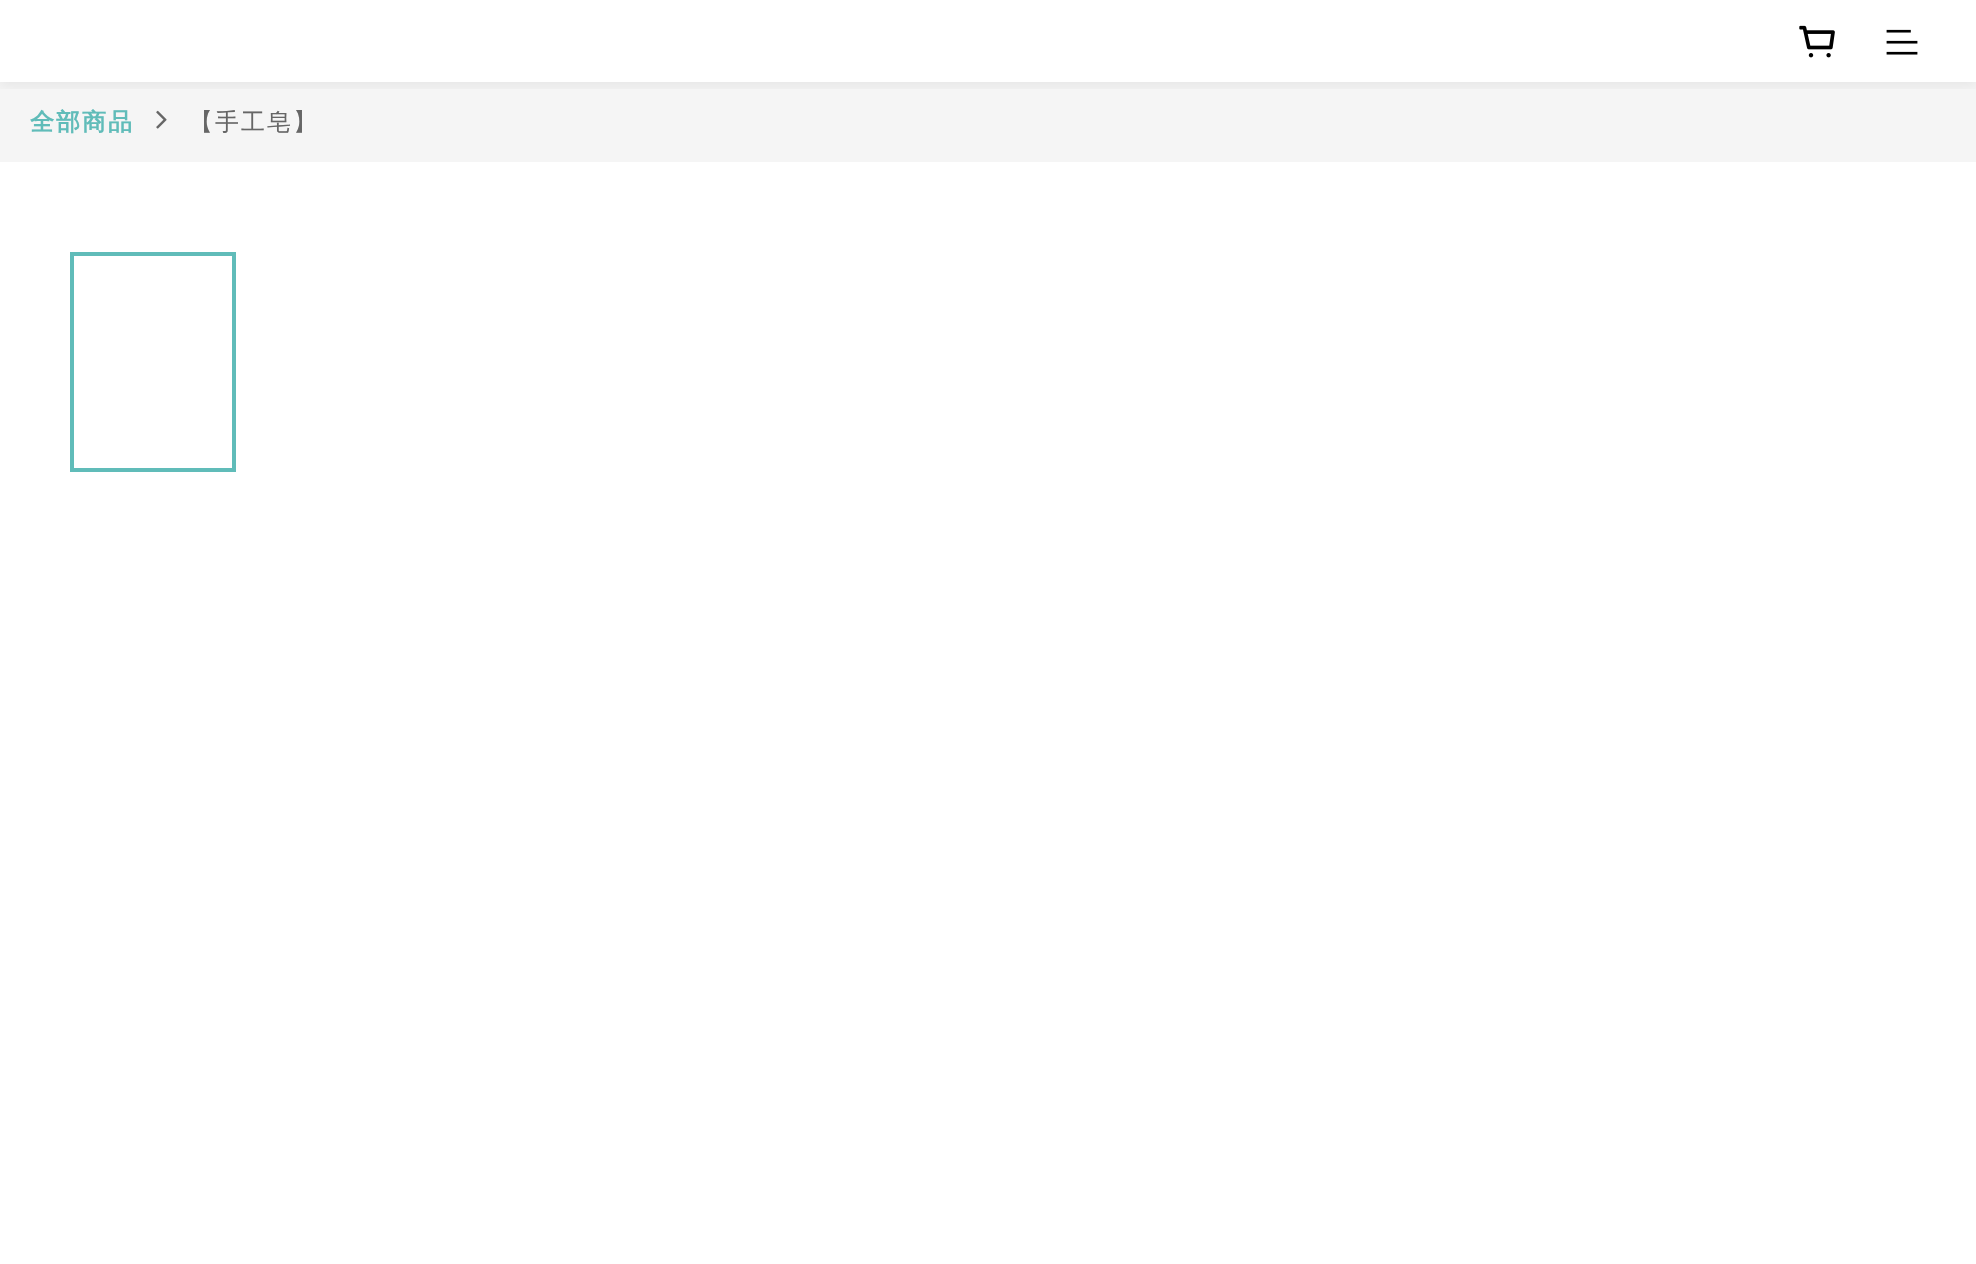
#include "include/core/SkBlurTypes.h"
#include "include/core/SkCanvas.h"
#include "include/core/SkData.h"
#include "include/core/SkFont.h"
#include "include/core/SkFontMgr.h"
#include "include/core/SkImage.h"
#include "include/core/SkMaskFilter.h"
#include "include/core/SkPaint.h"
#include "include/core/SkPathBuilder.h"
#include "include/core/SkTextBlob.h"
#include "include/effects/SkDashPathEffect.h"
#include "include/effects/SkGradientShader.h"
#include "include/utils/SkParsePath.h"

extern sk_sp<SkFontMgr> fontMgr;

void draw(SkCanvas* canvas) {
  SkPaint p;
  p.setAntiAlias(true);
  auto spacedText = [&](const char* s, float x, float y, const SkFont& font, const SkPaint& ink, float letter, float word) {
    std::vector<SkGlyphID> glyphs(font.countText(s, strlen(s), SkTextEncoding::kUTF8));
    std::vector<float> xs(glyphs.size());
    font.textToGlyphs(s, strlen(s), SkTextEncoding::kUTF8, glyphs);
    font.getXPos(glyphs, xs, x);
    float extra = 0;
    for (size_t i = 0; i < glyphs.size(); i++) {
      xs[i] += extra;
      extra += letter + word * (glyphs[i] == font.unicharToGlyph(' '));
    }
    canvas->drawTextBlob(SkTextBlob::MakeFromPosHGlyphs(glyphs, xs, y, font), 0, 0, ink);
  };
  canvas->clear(SK_ColorWHITE);
  p.setColor(SkColorSetRGB(245, 245, 245));
  canvas->drawRect(SkRect::MakeLTRB(0, 82, 1976, 162), p);
  canvas->save();
  canvas->clipRect(SkRect::MakeLTRB(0, 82, 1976, 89));
  p.setColor(SkColorSetARGB(15, 0, 0, 0));
  p.setMaskFilter(SkMaskFilter::MakeBlur(kNormal_SkBlurStyle, 6));
  canvas->drawRect(SkRect::MakeLTRB(0, 4, 1976, 86), p);
  p.setMaskFilter(nullptr);
  canvas->restore();
  canvas->drawImageRect(SkImages::DeferredFromEncodedData(SkData::MakeFromFileName("images/1.png")), SkRect::MakeLTRB(1799, 25, 1835, 58), SkSamplingOptions());
  canvas->drawImageRect(SkImages::DeferredFromEncodedData(SkData::MakeFromFileName("images/2.png")), SkRect::MakeLTRB(1886, 29, 1918, 55), SkSamplingOptions());
  canvas->drawImageRect(SkImages::DeferredFromEncodedData(SkData::MakeFromFileName("images/3.png")), SkRect::MakeLTRB(156, 110, 167, 129), SkSamplingOptions());
  p.setStyle(SkPaint::kStroke_Style);
  p.setStrokeWidth(4);
  p.setColor(SkColorSetRGB(96, 188, 185));
  canvas->drawRect(SkRect::MakeLTRB(72, 254, 234, 470), p);
  SkFont font1(fontMgr->matchFamilyStyle("WenQuanYi Zen Hei", SkFontStyle::Bold()), 24);
  font1.setSubpixel(true);
  p.setStyle(SkPaint::kFill_Style);
  spacedText("全部商品", 30, 130, font1, p, 2, 0);
  SkFont font2(fontMgr->matchFamilyStyle("WenQuanYi Zen Hei", SkFontStyle(500, SkFontStyle::kNormal_Width, SkFontStyle::kUpright_Slant)), 24);
  font2.setSubpixel(true);
  p.setColor(SkColorSetRGB(102, 102, 102));
  spacedText("【手工皂】", 189, 130, font2, p, 2, 0);
}
